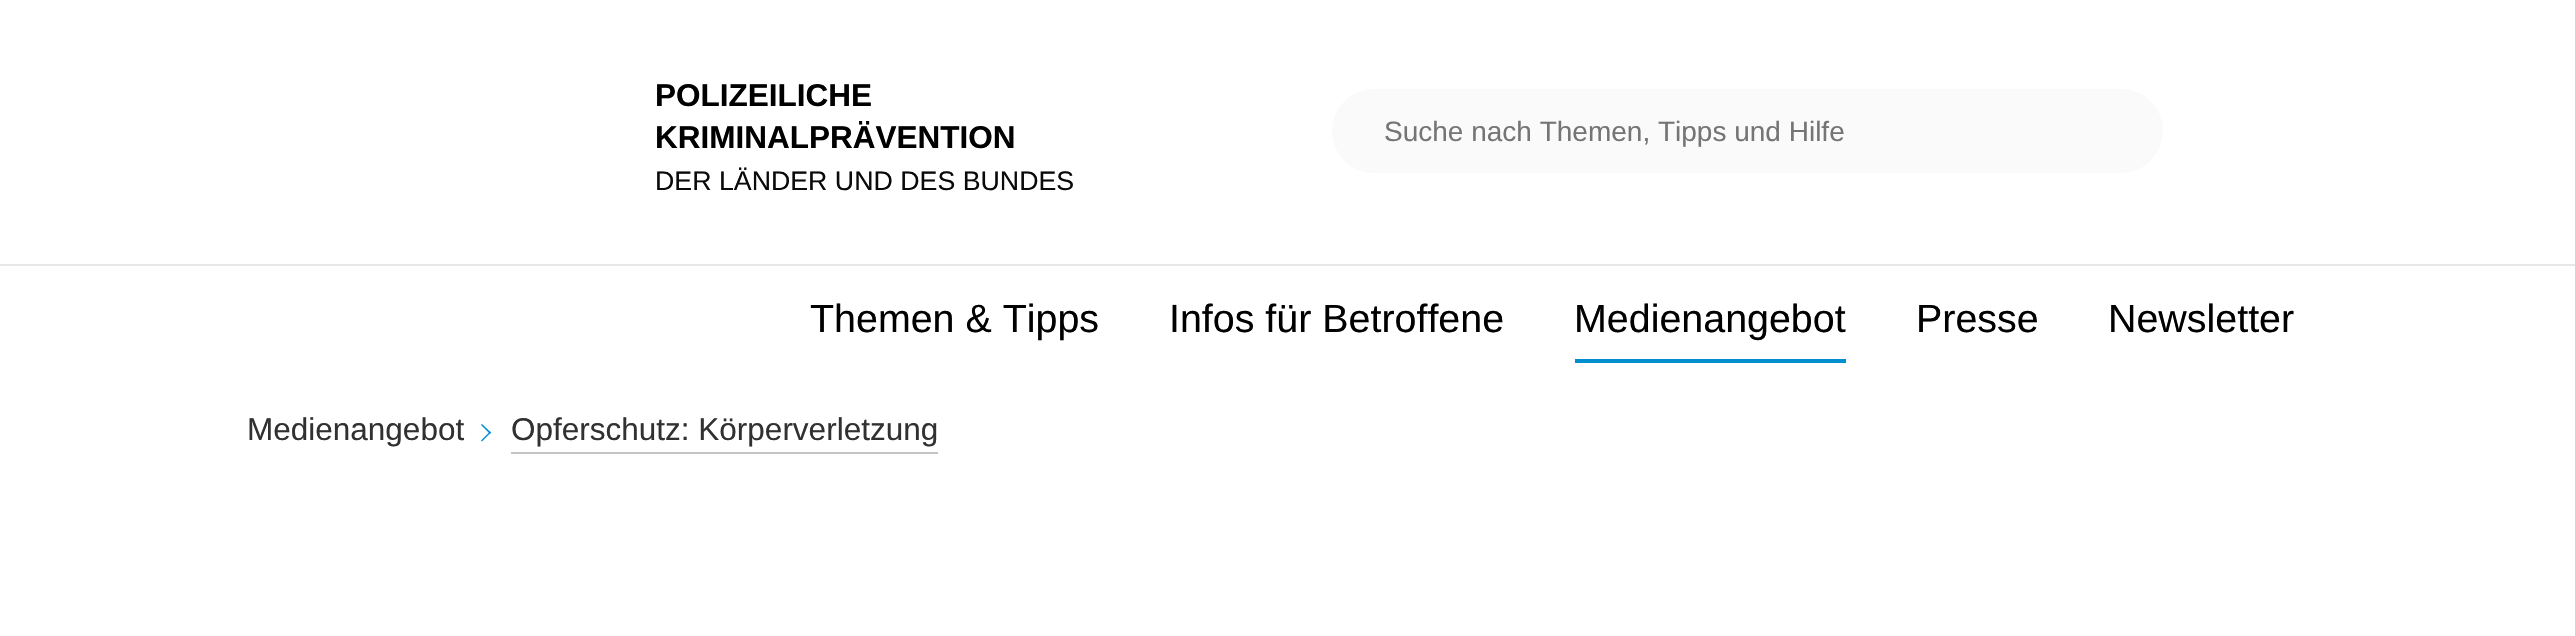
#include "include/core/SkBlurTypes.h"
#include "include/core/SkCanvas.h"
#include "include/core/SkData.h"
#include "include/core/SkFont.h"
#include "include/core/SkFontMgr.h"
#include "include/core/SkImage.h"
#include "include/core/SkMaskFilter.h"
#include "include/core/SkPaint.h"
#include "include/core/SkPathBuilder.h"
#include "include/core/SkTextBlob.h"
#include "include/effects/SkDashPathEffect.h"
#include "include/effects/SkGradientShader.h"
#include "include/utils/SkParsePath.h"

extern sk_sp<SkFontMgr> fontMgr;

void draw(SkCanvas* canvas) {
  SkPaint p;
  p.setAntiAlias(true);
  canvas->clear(SK_ColorWHITE);
  p.setColor(SkColorSetRGB(231, 231, 231));
  canvas->drawRect(SkRect::MakeLTRB(0, 264, 2575, 266), p);
  p.setColor(SkColorSetRGB(250, 250, 250));
  canvas->drawRoundRect(SkRect::MakeLTRB(1332, 89, 2163, 173), 42, 42, p);
  p.setColor(SkColorSetRGB(0, 142, 207));
  canvas->drawRect(SkRect::MakeLTRB(1575, 359, 1846, 363), p);
  canvas->drawPath(SkPathBuilder().moveTo(482, 424).lineTo(491, 432.5f).lineTo(490, 434).lineTo(481, 425).close().detach(), p);
  canvas->drawPath(SkPathBuilder().moveTo(490, 431.5f).lineTo(491, 432.5f).lineTo(482, 441.5f).lineTo(481, 440.5f).close().detach(), p);
  p.setColor(SkColorSetRGB(196, 196, 196));
  canvas->drawRect(SkRect::MakeLTRB(511, 452, 938, 454), p);
  SkFont font1(fontMgr->matchFamilyStyle("Liberation Sans", SkFontStyle::Bold()), 31.5f);
  font1.setSubpixel(true);
  p.setColor(SK_ColorBLACK);
  canvas->drawString("POLIZEILICHE", 655, 106, font1, p);
  canvas->drawString("KRIMINALPRÄVENTION", 655, 148, font1, p);
  SkFont font2(fontMgr->matchFamilyStyle("Liberation Sans", SkFontStyle::Normal()), 26.75f);
  font2.setSubpixel(true);
  p.setColor(SkColorSetRGB(10, 10, 10));
  canvas->drawString("DER LÄNDER UND DES BUNDES", 655, 190, font2, p);
  SkFont font3(fontMgr->matchFamilyStyle("Liberation Sans", SkFontStyle::Normal()), 28);
  font3.setSubpixel(true);
  p.setColor(SkColorSetRGB(117, 117, 117));
  canvas->drawString("Suche nach Themen, Tipps und Hilfe", 1384, 141, font3, p);
  SkFont font4(fontMgr->matchFamilyStyle("Liberation Sans", SkFontStyle::Normal()), 39.4f);
  font4.setSubpixel(true);
  p.setColor(SK_ColorBLACK);
  canvas->drawString("Themen & Tipps", 810, 332, font4, p);
  canvas->drawString("Infos für Betroffene", 1169, 332, font4, p);
  canvas->drawString("Medienangebot", 1574, 332, font4, p);
  canvas->drawString("Presse", 1916, 332, font4, p);
  canvas->drawString("Newsletter", 2108, 332, font4, p);
  SkFont font5(fontMgr->matchFamilyStyle("Liberation Sans", SkFontStyle::Normal()), 31.5f);
  font5.setSubpixel(true);
  p.setColor(SkColorSetRGB(49, 49, 49));
  canvas->drawString("Medienangebot", 247, 440, font5, p);
  canvas->drawString("Opferschutz: Körperverletzung", 511, 440, font5, p);
}
